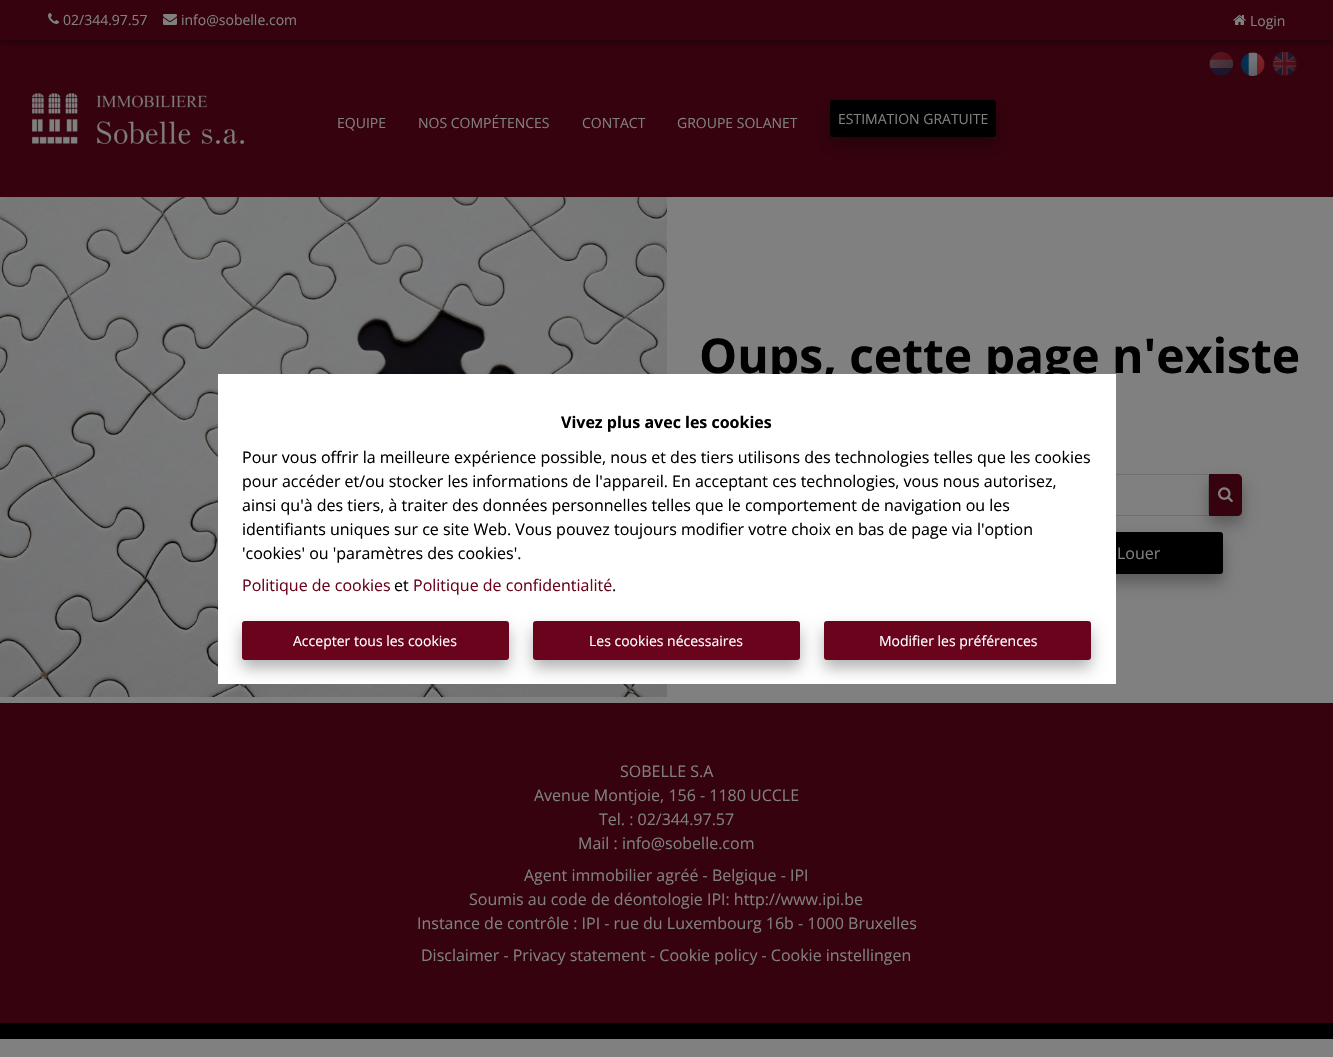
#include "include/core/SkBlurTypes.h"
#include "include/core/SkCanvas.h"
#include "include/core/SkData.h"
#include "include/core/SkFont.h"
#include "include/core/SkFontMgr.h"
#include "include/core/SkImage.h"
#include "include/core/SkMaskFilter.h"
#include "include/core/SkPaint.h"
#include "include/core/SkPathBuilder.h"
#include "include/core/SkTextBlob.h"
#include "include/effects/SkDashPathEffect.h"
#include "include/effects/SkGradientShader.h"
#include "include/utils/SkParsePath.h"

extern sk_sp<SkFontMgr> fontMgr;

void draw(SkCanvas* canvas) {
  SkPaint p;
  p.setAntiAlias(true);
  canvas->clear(SkColorSetRGB(128, 128, 128));
  p.setColor(SkColorSetRGB(53, 2, 14));
  canvas->drawRect(SkRect::MakeLTRB(0, 40, 1333, 197), p);
  canvas->drawImageRect(SkImages::DeferredFromEncodedData(SkData::MakeFromFileName("images/4.png")), SkRect::MakeLTRB(1209, 52, 1233, 76), SkSamplingOptions());
  canvas->drawImageRect(SkImages::DeferredFromEncodedData(SkData::MakeFromFileName("images/5.png")), SkRect::MakeLTRB(1241, 52, 1265, 76), SkSamplingOptions());
  canvas->drawImageRect(SkImages::DeferredFromEncodedData(SkData::MakeFromFileName("images/6.png")), SkRect::MakeLTRB(1273, 52, 1297, 76), SkSamplingOptions());
  p.setColor(SkColorSetARGB(31, 0, 0, 0));
  p.setMaskFilter(SkMaskFilter::MakeBlur(kNormal_SkBlurStyle, 5));
  canvas->drawRect(SkRect::MakeLTRB(0, 1, 1333, 41), p);
  p.setMaskFilter(nullptr);
  p.setColor(SkColorSetARGB(36, 0, 0, 0));
  p.setMaskFilter(SkMaskFilter::MakeBlur(kNormal_SkBlurStyle, 2.5f));
  canvas->drawRect(SkRect::MakeLTRB(0, 4, 1333, 44), p);
  p.setMaskFilter(nullptr);
  p.setColor(SkColorSetARGB(51, 0, 0, 0));
  p.setMaskFilter(SkMaskFilter::MakeBlur(kNormal_SkBlurStyle, 2));
  canvas->drawRect(SkRect::MakeLTRB(1, 3, 1332, 41), p);
  p.setMaskFilter(nullptr);
  p.setColor(SkColorSetRGB(53, 2, 14));
  canvas->drawRect(SkRect::MakeLTRB(0, 0, 1333, 40), p);
  canvas->drawImageRect(SkImages::DeferredFromEncodedData(SkData::MakeFromFileName("images/1.png")), SkRect::MakeLTRB(48, 13, 59, 24), SkSamplingOptions());
  canvas->drawImageRect(SkImages::DeferredFromEncodedData(SkData::MakeFromFileName("images/2.png")), SkRect::MakeLTRB(163, 14, 177, 25), SkSamplingOptions());
  canvas->drawImageRect(SkImages::DeferredFromEncodedData(SkData::MakeFromFileName("images/3.png")), SkRect::MakeLTRB(1233, 15, 1246, 25), SkSamplingOptions());
  canvas->drawImageRect(SkImages::DeferredFromEncodedData(SkData::MakeFromFileName("images/7.png")), SkRect::MakeLTRB(32, 93, 244, 144), SkSamplingOptions());
  p.setColor(SkColorSetARGB(77, 0, 0, 0));
  p.setMaskFilter(SkMaskFilter::MakeBlur(kNormal_SkBlurStyle, 7.5f));
  canvas->drawRoundRect(SkRect::MakeLTRB(830, 108, 996, 145), 3, 3, p);
  p.setMaskFilter(nullptr);
  p.setColor(SK_ColorBLACK);
  canvas->drawRoundRect(SkRect::MakeLTRB(830, 100, 996, 137), 3, 3, p);
  canvas->drawImageRect(SkImages::DeferredFromEncodedData(SkData::MakeFromFileName("images/8.png")), SkRect::MakeLTRB(0, 197, 667, 697), SkSamplingOptions());
  p.setStyle(SkPaint::kStroke_Style);
  p.setStrokeWidth(1);
  p.setColor(SkColorSetRGB(111, 111, 111));
  canvas->drawRoundRect(SkRect::MakeLTRB(758.5f, 474.5f, 1208.5f, 515.5f), 1.5f, 1.5f, p);
  p.setStyle(SkPaint::kFill_Style);
  p.setColor(SkColorSetARGB(77, 0, 0, 0));
  p.setMaskFilter(SkMaskFilter::MakeBlur(kNormal_SkBlurStyle, 7.5f));
  canvas->drawRoundRect(SkRect::MakeLTRB(1039, 540, 1223, 582), 3, 3, p);
  p.setMaskFilter(nullptr);
  p.setColor(SK_ColorBLACK);
  canvas->drawRoundRect(SkRect::MakeLTRB(1039, 532, 1223, 574), 3, 3, p);
  p.setColor(SkColorSetARGB(77, 0, 0, 0));
  p.setMaskFilter(SkMaskFilter::MakeBlur(kNormal_SkBlurStyle, 7.5f));
  canvas->drawRoundRect(SkRect::MakeLTRB(1209, 482, 1242, 524), 5, 5, p);
  p.setMaskFilter(nullptr);
  p.setColor(SkColorSetRGB(53, 2, 14));
  canvas->drawPath(SkPathBuilder().moveTo(1209, 474).lineTo(1237, 474).cubicTo(1240, 474, 1242, 476, 1242, 479).lineTo(1242, 511).cubicTo(1242, 514, 1240, 516, 1237, 516).lineTo(1209, 516).close().detach(), p);
  canvas->drawImageRect(SkImages::DeferredFromEncodedData(SkData::MakeFromFileName("images/9.png")), SkRect::MakeLTRB(1218, 487, 1233, 503), SkSamplingOptions());
  canvas->drawRect(SkRect::MakeLTRB(0, 703, 1333, 1023), p);
  p.setColor(SK_ColorBLACK);
  canvas->drawRect(SkRect::MakeLTRB(0, 1023, 1333, 1039), p);
  SkFont font1(fontMgr->matchFamilyStyle("Open Sans", SkFontStyle::Normal()), 14);
  font1.setSubpixel(true);
  p.setColor(SkColorSetRGB(128, 128, 128));
  canvas->drawString("02/344.97.57", 63, 25, font1, p);
  canvas->drawString("info@sobelle.com", 181, 25, font1, p);
  canvas->drawString("Login", 1250, 26, font1, p);
  canvas->drawString("EQUIPE", 337, 128, font1, p);
  canvas->drawString("NOS COMPÉTENCES", 418, 128, font1, p);
  canvas->drawString("CONTACT", 582, 128, font1, p);
  canvas->drawString("GROUPE SOLANET", 677, 128, font1, p);
  canvas->drawString("ESTIMATION GRATUITE", 838, 124, font1, p);
  SkFont font2(fontMgr->matchFamilyStyle("Open Sans", SkFontStyle::Bold()), 48);
  font2.setSubpixel(true);
  p.setColor(SK_ColorBLACK);
  canvas->drawString("Oups, cette page n'existe", 699, 373, font2, p);
  SkFont font3(fontMgr->matchFamilyStyle("Open Sans", SkFontStyle::Normal()), 16);
  font3.setSubpixel(true);
  p.setColor(SkColorSetRGB(128, 128, 128));
  canvas->drawString("Louer", 1117, 559, font3, p);
  p.setColor(SK_ColorWHITE);
  canvas->drawRect(SkRect::MakeLTRB(218, 374, 1116, 684), p);
  SkFont font4(fontMgr->matchFamilyStyle("Open Sans", SkFontStyle::Bold()), 16);
  font4.setSubpixel(true);
  p.setColor(SK_ColorBLACK);
  canvas->drawString("Vivez plus avec les cookies", 561, 428, font4, p);
  canvas->drawString("Pour vous offrir la meilleure expérience possible, nous et des tiers utilisons des technologies telles que les cookies", 242, 463, font3, p);
  canvas->drawString("pour accéder et/ou stocker les informations de l'appareil. En acceptant ces technologies, vous nous autorisez,", 242, 487, font3, p);
  canvas->drawString("ainsi qu'à des tiers, à traiter des données personnelles telles que le comportement de navigation ou les", 242, 511, font3, p);
  canvas->drawString("identifiants uniques sur ce site Web. Vous pouvez toujours modifier votre choix en bas de page via l'option", 242, 535, font3, p);
  canvas->drawString("'cookies' ou 'paramètres des cookies'.", 242, 559, font3, p);
  p.setColor(SkColorSetRGB(105, 4, 28));
  canvas->drawString("Politique de cookies", 242, 591, font3, p);
  p.setColor(SK_ColorBLACK);
  canvas->drawString("et", 394, 591, font3, p);
  p.setColor(SkColorSetRGB(105, 4, 28));
  canvas->drawString("Politique de confidentialité", 413, 591, font3, p);
  p.setColor(SK_ColorBLACK);
  canvas->drawString(".", 612, 591, font3, p);
  p.setColor(SkColorSetARGB(77, 0, 0, 0));
  p.setMaskFilter(SkMaskFilter::MakeBlur(kNormal_SkBlurStyle, 7.5f));
  canvas->drawRoundRect(SkRect::MakeLTRB(242, 629, 509, 668), 3, 3, p);
  p.setMaskFilter(nullptr);
  p.setColor(SkColorSetRGB(105, 4, 28));
  canvas->drawRoundRect(SkRect::MakeLTRB(242, 621, 509, 660), 3, 3, p);
  p.setColor(SK_ColorWHITE);
  canvas->drawString("Accepter tous les cookies", 293, 646, font1, p);
  p.setColor(SkColorSetARGB(77, 0, 0, 0));
  p.setMaskFilter(SkMaskFilter::MakeBlur(kNormal_SkBlurStyle, 7.5f));
  canvas->drawRoundRect(SkRect::MakeLTRB(533, 629, 800, 668), 3, 3, p);
  p.setMaskFilter(nullptr);
  p.setColor(SkColorSetRGB(105, 4, 28));
  canvas->drawRoundRect(SkRect::MakeLTRB(533, 621, 800, 660), 3, 3, p);
  p.setColor(SK_ColorWHITE);
  canvas->drawString("Les cookies nécessaires", 589, 646, font1, p);
  p.setColor(SkColorSetARGB(77, 0, 0, 0));
  p.setMaskFilter(SkMaskFilter::MakeBlur(kNormal_SkBlurStyle, 7.5f));
  canvas->drawRoundRect(SkRect::MakeLTRB(824, 629, 1091, 668), 3, 3, p);
  p.setMaskFilter(nullptr);
  p.setColor(SkColorSetRGB(105, 4, 28));
  canvas->drawRoundRect(SkRect::MakeLTRB(824, 621, 1091, 660), 3, 3, p);
  p.setColor(SK_ColorWHITE);
  canvas->drawString("Modifier les préférences", 879, 646, font1, p);
  p.setColor(SkColorSetRGB(128, 128, 128));
  canvas->drawString("SOBELLE S.A", 620, 777, font3, p);
  canvas->drawString("Avenue Montjoie, 156 - 1180 UCCLE", 534, 801, font3, p);
  canvas->drawString("Tel. : 02/344.97.57", 599, 825, font3, p);
  canvas->drawString("Mail : info@sobelle.com", 578, 849, font3, p);
  canvas->drawString("Agent immobilier agréé - Belgique - IPI", 524, 881, font3, p);
  canvas->drawString("Soumis au code de déontologie IPI: http://www.ipi.be", 469, 905, font3, p);
  canvas->drawString("Instance de contrôle : IPI - rue du Luxembourg 16b - 1000 Bruxelles", 417, 929, font3, p);
  canvas->drawString("Disclaimer - Privacy statement - Cookie policy - Cookie instellingen", 421, 961, font3, p);
}
